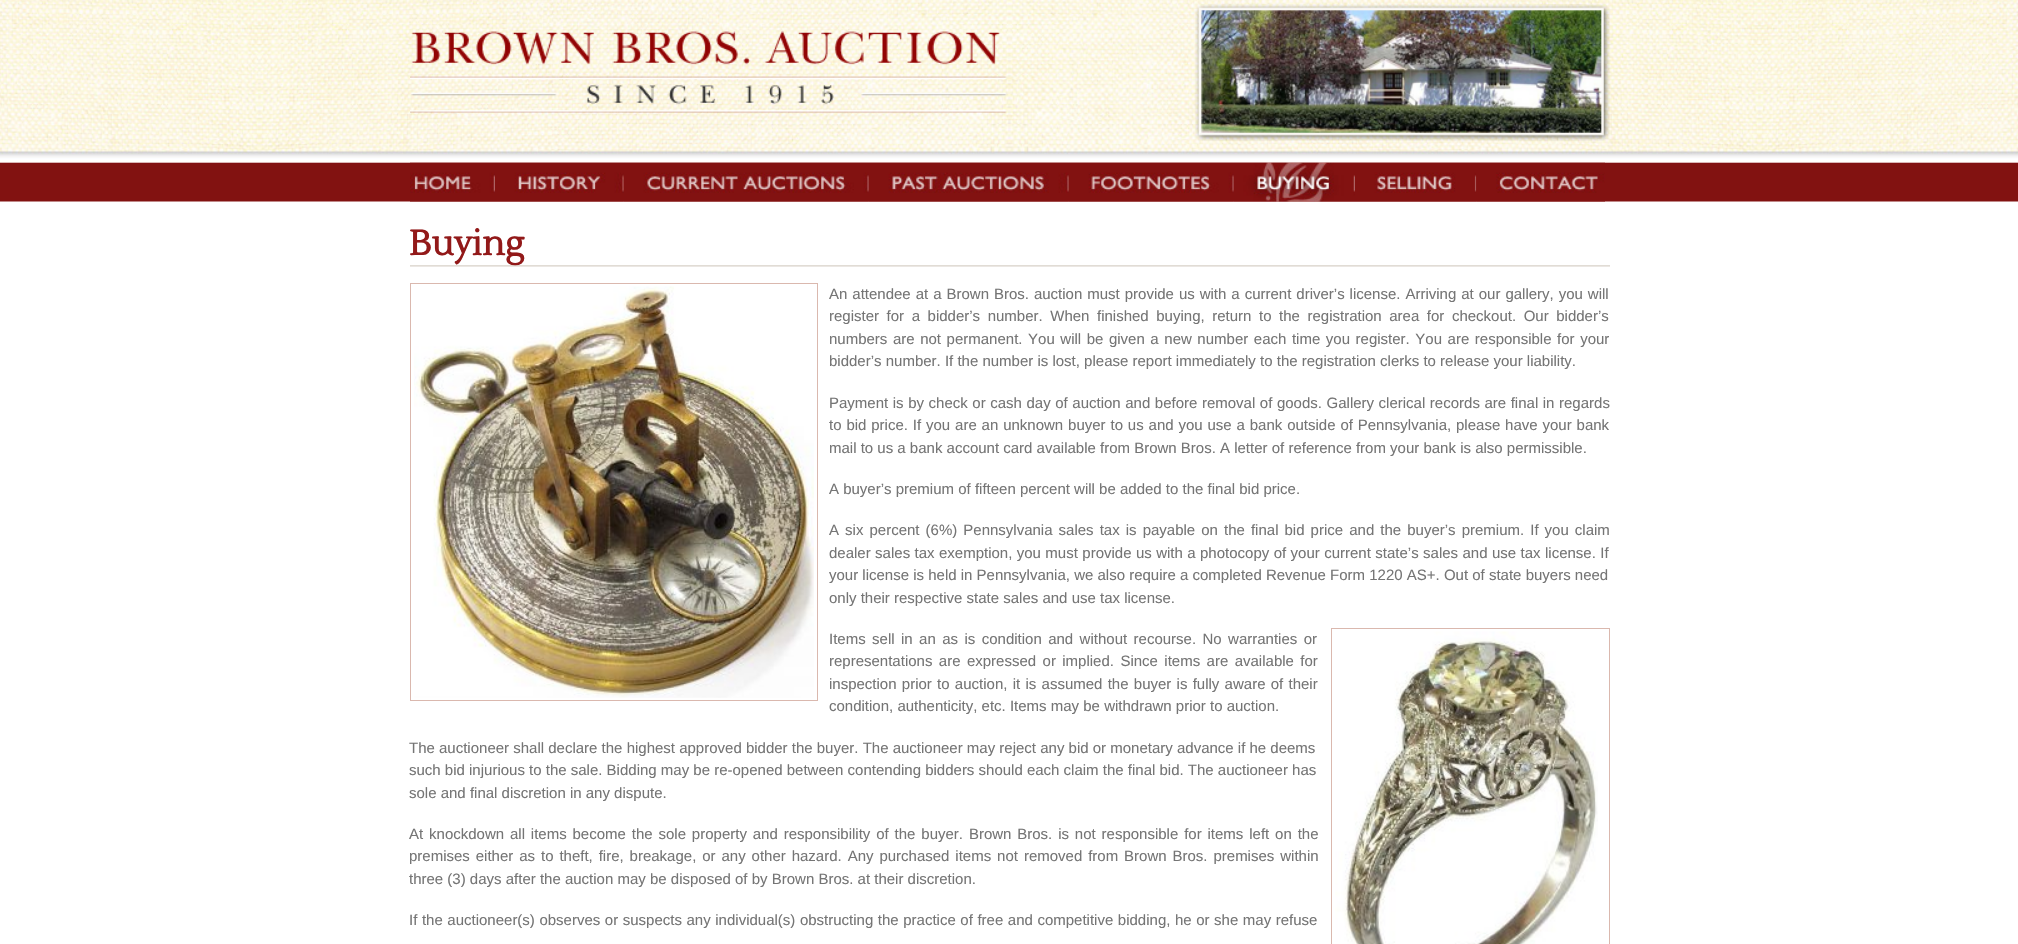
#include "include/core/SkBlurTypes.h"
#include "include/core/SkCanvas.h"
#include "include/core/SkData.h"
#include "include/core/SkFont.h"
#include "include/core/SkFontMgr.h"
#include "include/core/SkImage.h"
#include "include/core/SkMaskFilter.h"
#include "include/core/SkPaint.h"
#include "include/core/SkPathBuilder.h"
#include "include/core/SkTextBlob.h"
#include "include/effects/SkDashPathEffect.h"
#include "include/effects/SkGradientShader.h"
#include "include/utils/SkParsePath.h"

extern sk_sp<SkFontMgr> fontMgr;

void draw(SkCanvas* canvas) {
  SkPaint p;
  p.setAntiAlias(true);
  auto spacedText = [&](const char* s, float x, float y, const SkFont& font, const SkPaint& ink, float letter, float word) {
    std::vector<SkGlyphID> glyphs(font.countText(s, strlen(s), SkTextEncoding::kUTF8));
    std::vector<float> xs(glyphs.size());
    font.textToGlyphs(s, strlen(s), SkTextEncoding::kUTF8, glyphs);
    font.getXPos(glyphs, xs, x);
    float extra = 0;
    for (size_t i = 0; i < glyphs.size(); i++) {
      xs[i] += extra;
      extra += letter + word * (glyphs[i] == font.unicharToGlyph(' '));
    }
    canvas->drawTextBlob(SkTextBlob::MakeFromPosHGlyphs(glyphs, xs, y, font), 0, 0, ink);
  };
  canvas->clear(SK_ColorWHITE);
  canvas->drawImageRect(SkImages::DeferredFromEncodedData(SkData::MakeFromFileName("images/1.png")), SkRect::MakeLTRB(0, 0, 2018, 202), SkSamplingOptions());
  canvas->drawImageRect(SkImages::DeferredFromEncodedData(SkData::MakeFromFileName("images/2.png")), SkRect::MakeLTRB(410, 31, 1007, 113), SkSamplingOptions());
  canvas->drawImageRect(SkImages::DeferredFromEncodedData(SkData::MakeFromFileName("images/3.png")), SkRect::MakeLTRB(1195, 4, 1610, 141), SkSamplingOptions());
  canvas->drawImageRect(SkImages::DeferredFromEncodedData(SkData::MakeFromFileName("images/4.png")), SkRect::MakeLTRB(410, 162, 495, 202), SkSamplingOptions());
  canvas->drawImageRect(SkImages::DeferredFromEncodedData(SkData::MakeFromFileName("images/5.png")), SkRect::MakeLTRB(495, 162, 624, 202), SkSamplingOptions());
  canvas->drawImageRect(SkImages::DeferredFromEncodedData(SkData::MakeFromFileName("images/6.png")), SkRect::MakeLTRB(623, 162, 869, 202), SkSamplingOptions());
  canvas->drawImageRect(SkImages::DeferredFromEncodedData(SkData::MakeFromFileName("images/7.png")), SkRect::MakeLTRB(868, 162, 1069, 202), SkSamplingOptions());
  canvas->drawImageRect(SkImages::DeferredFromEncodedData(SkData::MakeFromFileName("images/8.png")), SkRect::MakeLTRB(1068, 162, 1234, 202), SkSamplingOptions());
  canvas->drawImageRect(SkImages::DeferredFromEncodedData(SkData::MakeFromFileName("images/9.png")), SkRect::MakeLTRB(1233, 162, 1355, 202), SkSamplingOptions());
  canvas->drawImageRect(SkImages::DeferredFromEncodedData(SkData::MakeFromFileName("images/10.png")), SkRect::MakeLTRB(1355, 162, 1477, 202), SkSamplingOptions());
  canvas->drawImageRect(SkImages::DeferredFromEncodedData(SkData::MakeFromFileName("images/11.png")), SkRect::MakeLTRB(1476, 162, 1605, 202), SkSamplingOptions());
  canvas->drawImageRect(SkImages::DeferredFromEncodedData(SkData::MakeFromFileName("images/12.png")), SkRect::MakeLTRB(410, 265, 1610, 267), SkSamplingOptions());
  p.setStyle(SkPaint::kStroke_Style);
  p.setStrokeWidth(1);
  p.setColor(SkColorSetRGB(218, 184, 174));
  canvas->drawRect(SkRect::MakeLTRB(410.5f, 283.5f, 817.5f, 700.5f), p);
  canvas->drawImageRect(SkImages::DeferredFromEncodedData(SkData::MakeFromFileName("images/13.png")), SkRect::MakeLTRB(414, 286, 814, 698), SkSamplingOptions());
  canvas->drawRect(SkRect::MakeLTRB(1331.5f, 628.5f, 1609.5f, 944.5f), p);
  canvas->drawImageRect(SkImages::DeferredFromEncodedData(SkData::MakeFromFileName("images/14.png")), SkRect::MakeLTRB(1335, 631, 1598, 944), SkSamplingOptions());
  SkFont font1(fontMgr->matchFamilyStyle("Lustria", SkFontStyle::Bold()), 35);
  font1.setSubpixel(true);
  p.setStyle(SkPaint::kFill_Style);
  p.setColor(SkColorSetRGB(146, 25, 25));
  canvas->drawString("Buying", 409, 255, font1, p);
  SkFont font2(fontMgr->matchFamilyStyle("Liberation Sans", SkFontStyle::Normal()), 15);
  font2.setSubpixel(true);
  p.setColor(SkColorSetRGB(117, 117, 117));
  spacedText("An attendee at a Brown Bros. auction must provide us with a current driver’s license. Arriving at our gallery, you will", 829, 299, font2, p, 0, 0.8f);
  spacedText("register for a bidder’s number. When finished buying, return to the registration area for checkout. Our bidder’s", 829, 321, font2, p, 0, 3.4f);
  spacedText("numbers are not permanent. You will be given a new number each time you register. You are responsible for your", 829, 344, font2, p, 0, 1.4f);
  canvas->drawString("bidder’s number. If the number is lost, please report immediately to the registration clerks to release your liability.", 829, 366, font2, p);
  spacedText("Payment is by check or cash day of auction and before removal of goods. Gallery clerical records are final in regards", 829, 408, font2, p, 0, 0.4f);
  spacedText("to bid price. If you are an unknown buyer to us and you use a bank outside of Pennsylvania, please have your bank", 829, 430, font2, p, 0, 0.7f);
  canvas->drawString("mail to us a bank account card available from Brown Bros. A letter of reference from your bank is also permissible.", 829, 453, font2, p);
  canvas->drawString("A buyer’s premium of fifteen percent will be added to the final bid price.", 829, 494, font2, p);
  spacedText("A six percent (6%) Pennsylvania sales tax is payable on the final bid price and the buyer’s premium. If you claim", 829, 535, font2, p, 0, 1.9f);
  spacedText("dealer sales tax exemption, you must provide us with a photocopy of your current state’s sales and use tax license. If", 829, 558, font2, p, 0, 0.25f);
  canvas->drawString("your license is held in Pennsylvania, we also require a completed Revenue Form 1220 AS+. Out of state buyers need", 829, 580, font2, p);
  canvas->drawString("only their respective state sales and use tax license.", 829, 603, font2, p);
  spacedText("Items sell in an as is condition and without recourse. No warranties or", 829, 644, font2, p, 0, 2.25f);
  spacedText("representations are expressed or implied. Since items are available for", 829, 666, font2, p, 0, 2.25f);
  spacedText("inspection prior to auction, it is assumed the buyer is fully aware of their", 829, 689, font2, p, 0, 1.1f);
  canvas->drawString("condition, authenticity, etc. Items may be withdrawn prior to auction.", 829, 711, font2, p);
  canvas->drawString("The auctioneer shall declare the highest approved bidder the buyer. The auctioneer may reject any bid or monetary advance if he deems", 409, 753, font2, p);
  canvas->drawString("such bid injurious to the sale. Bidding may be re-opened between contending bidders should each claim the final bid. The auctioneer has", 409, 775, font2, p);
  canvas->drawString("sole and final discretion in any dispute.", 409, 798, font2, p);
  spacedText("At knockdown all items become the sole property and responsibility of the buyer. Brown Bros. is not responsible for items left on the", 409, 839, font2, p, 0, 1.7f);
  spacedText("premises either as to theft, fire, breakage, or any other hazard. Any purchased items not removed from Brown Bros. premises within", 409, 861, font2, p, 0, 1.75f);
  canvas->drawString("three (3) days after the auction may be disposed of by Brown Bros. at their discretion.", 409, 884, font2, p);
  spacedText("If the auctioneer(s) observes or suspects any individual(s) obstructing the practice of free and competitive bidding, he or she may refuse", 409, 925, font2, p, 0, 0.4f);
}
